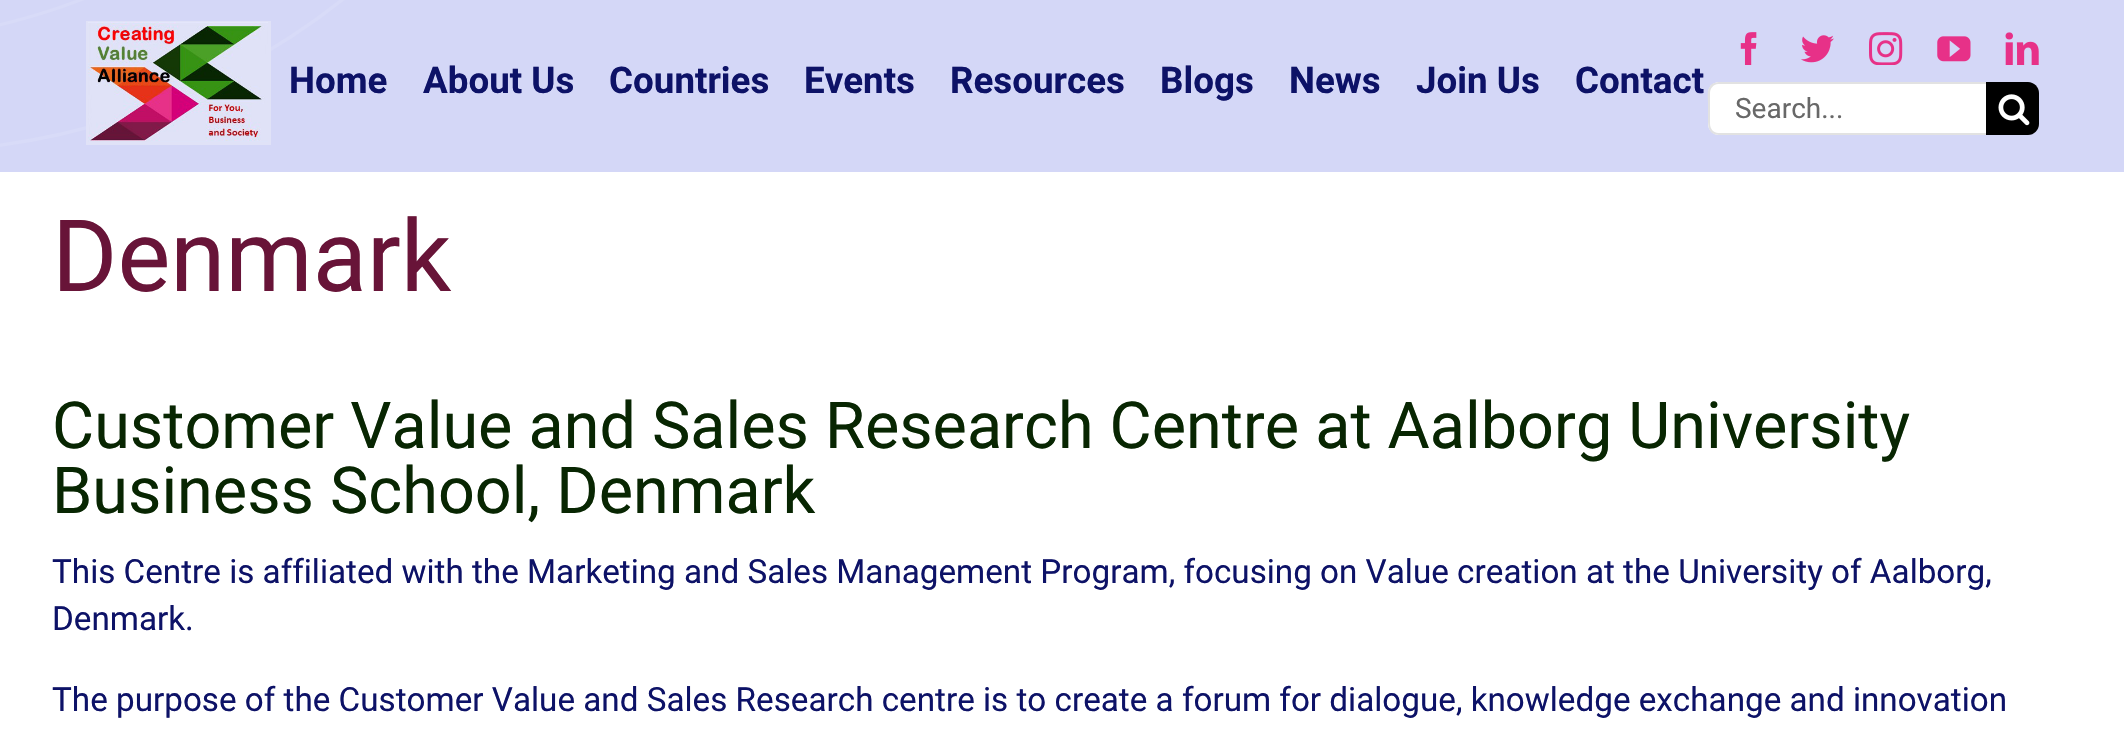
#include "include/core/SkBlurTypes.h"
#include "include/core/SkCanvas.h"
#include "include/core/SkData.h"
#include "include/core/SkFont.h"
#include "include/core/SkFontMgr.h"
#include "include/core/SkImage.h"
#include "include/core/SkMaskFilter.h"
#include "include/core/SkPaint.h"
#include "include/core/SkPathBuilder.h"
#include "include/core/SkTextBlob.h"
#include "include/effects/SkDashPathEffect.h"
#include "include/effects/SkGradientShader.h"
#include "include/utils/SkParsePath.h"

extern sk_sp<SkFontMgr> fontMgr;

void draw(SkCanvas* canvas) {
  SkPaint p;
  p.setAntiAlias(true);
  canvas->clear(SK_ColorWHITE);
  p.setColor(SkColorSetRGB(212, 215, 247));
  canvas->drawRect(SkRect::MakeLTRB(0, 0, 2124, 172), p);
  p.setStyle(SkPaint::kStroke_Style);
  p.setStrokeWidth(3.3f);
  p.setColor(SkColorSetRGB(216, 219, 248));
  canvas->drawPath(SkPathBuilder().moveTo(-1, 25).cubicTo(82.5f, 5, 160, -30.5f, 228, -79).detach(), p);
  p.setStrokeWidth(3.6f);
  canvas->drawPath(SkPathBuilder().moveTo(-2, 145.5f).cubicTo(167.5f, 123, 318.5f, 40.5f, 428, -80.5f).detach(), p);
  canvas->drawImageRect(SkImages::DeferredFromEncodedData(SkData::MakeFromFileName("images/1.png")), SkRect::MakeLTRB(86, 21, 271, 145), SkSamplingOptions());
  canvas->drawImageRect(SkImages::DeferredFromEncodedData(SkData::MakeFromFileName("images/2.png")), SkRect::MakeLTRB(1740, 32, 1757, 65), SkSamplingOptions());
  canvas->drawImageRect(SkImages::DeferredFromEncodedData(SkData::MakeFromFileName("images/3.png")), SkRect::MakeLTRB(1801, 35, 1834, 63), SkSamplingOptions());
  canvas->drawImageRect(SkImages::DeferredFromEncodedData(SkData::MakeFromFileName("images/4.png")), SkRect::MakeLTRB(1869, 32, 1903, 65), SkSamplingOptions());
  canvas->drawImageRect(SkImages::DeferredFromEncodedData(SkData::MakeFromFileName("images/5.png")), SkRect::MakeLTRB(1937, 36, 1971, 62), SkSamplingOptions());
  canvas->drawImageRect(SkImages::DeferredFromEncodedData(SkData::MakeFromFileName("images/6.png")), SkRect::MakeLTRB(2005, 32, 2039, 65), SkSamplingOptions());
  p.setStyle(SkPaint::kFill_Style);
  p.setColor(SK_ColorWHITE);
  canvas->drawPath(SkPathBuilder().moveTo(1719, 82).lineTo(1986, 82).lineTo(1986, 135).lineTo(1719, 135).cubicTo(1713, 135, 1708, 130, 1708, 124).lineTo(1708, 93).cubicTo(1708, 87, 1713, 82, 1719, 82).close().detach(), p);
  p.setColor(SkColorSetRGB(226, 226, 226));
  canvas->drawPath(SkPathBuilder().moveTo(1718, 84).lineTo(1986, 84).lineTo(1986, 82).lineTo(1719, 82).cubicTo(1717, 82, 1714, 83, 1712, 84).cubicTo(1706, 89, 1708, 97, 1708, 103).lineTo(1708, 119).cubicTo(1708, 124, 1708, 129, 1712, 133).cubicTo(1714, 134, 1717, 135, 1719, 135).lineTo(1986, 135).lineTo(1986, 133).lineTo(1718, 133).cubicTo(1714, 133, 1710, 129, 1710, 124).lineTo(1710, 93).cubicTo(1710, 88, 1714, 84, 1718, 84).close().detach(), p);
  p.setColor(SK_ColorBLACK);
  canvas->drawPath(SkPathBuilder().moveTo(1986, 82).lineTo(2028, 82).cubicTo(2034, 82, 2039, 87, 2039, 93).lineTo(2039, 124).cubicTo(2039, 130, 2034, 135, 2028, 135).lineTo(1986, 135).close().detach(), p);
  canvas->drawImageRect(SkImages::DeferredFromEncodedData(SkData::MakeFromFileName("images/7.png")), SkRect::MakeLTRB(1998, 94, 2030, 126), SkSamplingOptions());
  SkFont font1(fontMgr->matchFamilyStyle("Roboto", SkFontStyle::Bold()), 36.75f);
  font1.setSubpixel(true);
  p.setColor(SkColorSetRGB(13, 18, 103));
  canvas->drawString("Home", 289, 93, font1, p);
  canvas->drawString("About Us", 423, 93, font1, p);
  canvas->drawString("Countries", 609, 93, font1, p);
  canvas->drawString("Events", 804, 93, font1, p);
  canvas->drawString("Resources", 950, 93, font1, p);
  canvas->drawString("Blogs", 1160, 93, font1, p);
  canvas->drawString("News", 1289, 93, font1, p);
  canvas->drawString("Join Us", 1416, 93, font1, p);
  canvas->drawString("Contact", 1575, 93, font1, p);
  SkFont font2(fontMgr->matchFamilyStyle("Roboto", SkFontStyle::Normal()), 28);
  font2.setSubpixel(true);
  p.setColor(SkColorSetRGB(104, 104, 104));
  canvas->drawString("Search...", 1735, 118, font2, p);
  SkFont font3(fontMgr->matchFamilyStyle("Roboto", SkFontStyle::Normal()), 99.75f);
  font3.setSubpixel(true);
  p.setColor(SkColorSetRGB(104, 20, 56));
  canvas->drawString("Denmark", 52, 291, font3, p);
  SkFont font4(fontMgr->matchFamilyStyle("Roboto", SkFontStyle::Normal()), 64.75f);
  font4.setSubpixel(true);
  p.setColor(SkColorSetRGB(8, 38, 2));
  canvas->drawString("Customer Value and Sales Research Centre at Aalborg University", 52, 448, font4, p);
  canvas->drawString("Business School, Denmark", 52, 513, font4, p);
  SkFont font5(fontMgr->matchFamilyStyle("Roboto", SkFontStyle::Normal()), 33.25f);
  font5.setSubpixel(true);
  p.setColor(SkColorSetRGB(13, 18, 103));
  canvas->drawString("This Centre is affiliated with the Marketing and Sales Management Program, focusing on Value creation at the University of Aalborg,", 52, 583, font5, p);
  canvas->drawString("Denmark.", 52, 630, font5, p);
  canvas->drawString("The purpose of the Customer Value and Sales Research centre is to create a forum for dialogue, knowledge exchange and innovation", 52, 711, font5, p);
}
